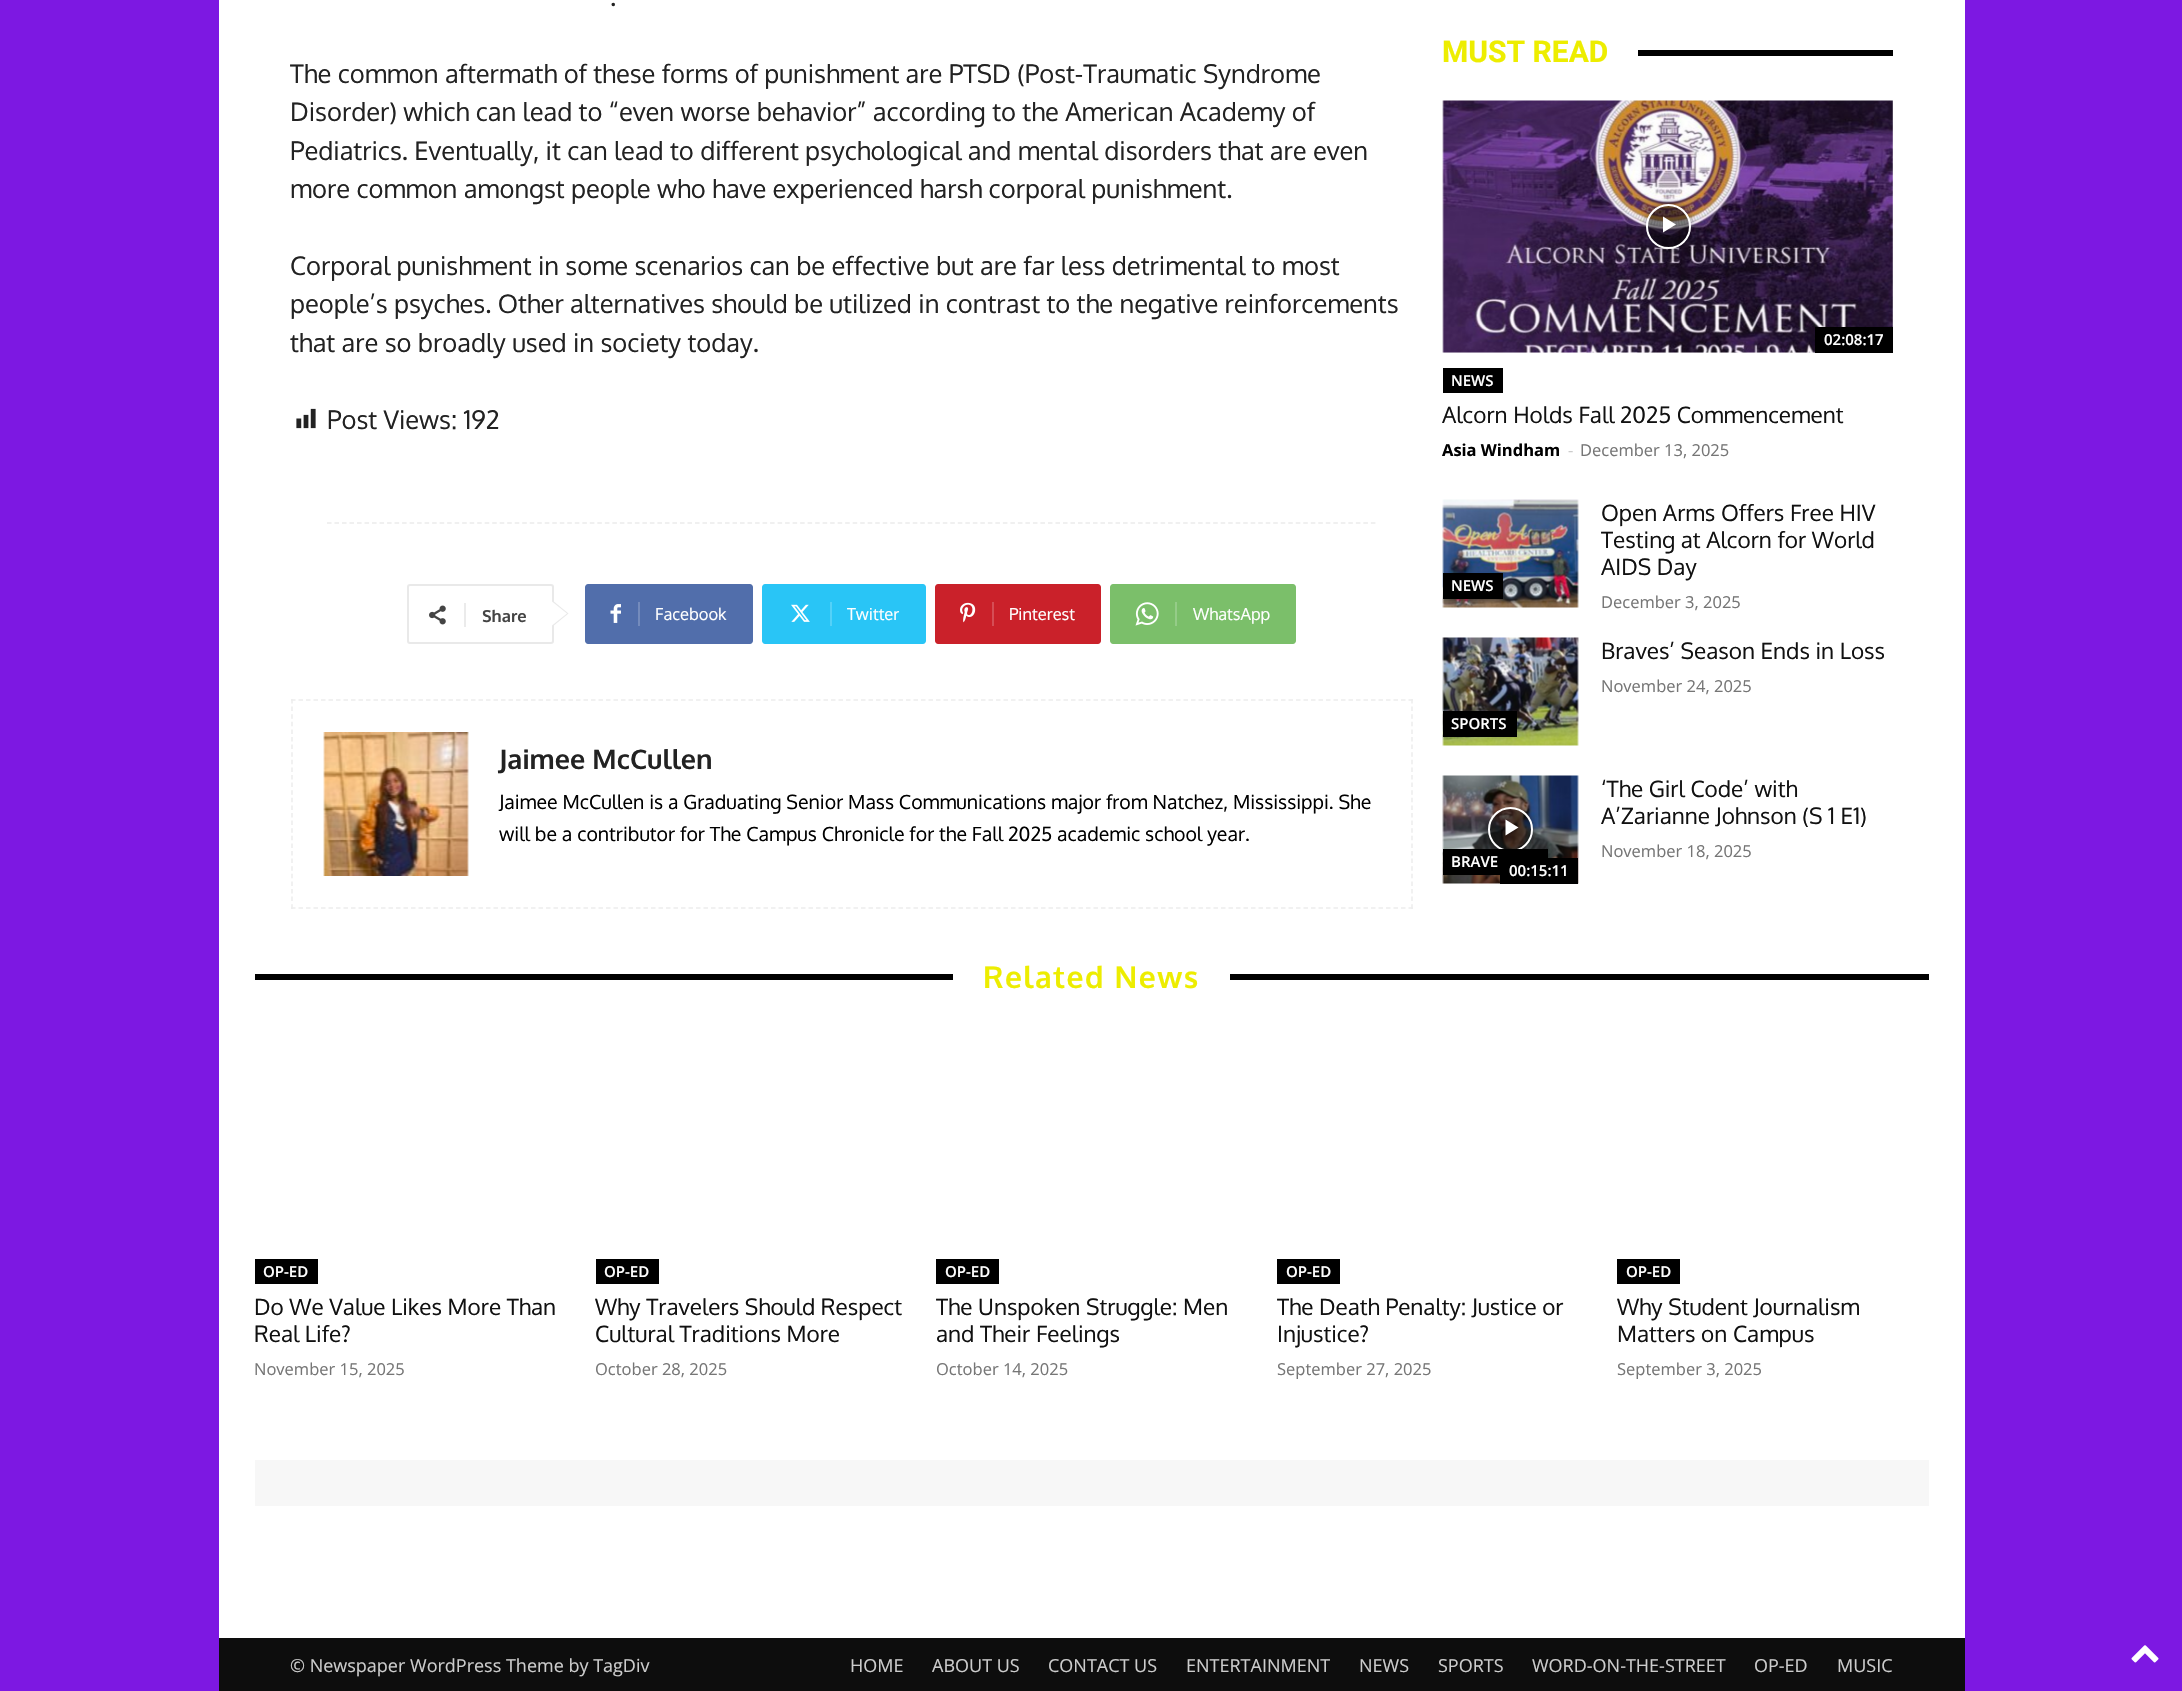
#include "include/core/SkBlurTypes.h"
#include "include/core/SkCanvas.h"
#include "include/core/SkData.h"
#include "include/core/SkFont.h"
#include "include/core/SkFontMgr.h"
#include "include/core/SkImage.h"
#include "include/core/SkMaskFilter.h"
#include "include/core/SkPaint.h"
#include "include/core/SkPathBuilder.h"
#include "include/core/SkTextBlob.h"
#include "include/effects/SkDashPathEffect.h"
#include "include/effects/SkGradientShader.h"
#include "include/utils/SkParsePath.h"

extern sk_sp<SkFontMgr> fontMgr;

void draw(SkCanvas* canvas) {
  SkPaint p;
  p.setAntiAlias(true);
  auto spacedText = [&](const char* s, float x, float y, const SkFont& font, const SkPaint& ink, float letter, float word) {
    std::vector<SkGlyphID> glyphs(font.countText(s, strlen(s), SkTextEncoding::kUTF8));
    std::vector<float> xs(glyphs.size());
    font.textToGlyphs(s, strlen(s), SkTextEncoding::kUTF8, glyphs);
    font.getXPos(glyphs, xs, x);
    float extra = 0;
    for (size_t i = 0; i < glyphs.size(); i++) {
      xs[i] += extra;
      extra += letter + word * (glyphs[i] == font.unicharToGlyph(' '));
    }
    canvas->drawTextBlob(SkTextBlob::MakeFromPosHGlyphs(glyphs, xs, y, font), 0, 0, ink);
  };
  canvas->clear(SkColorSetRGB(125, 24, 226));
  p.setColor(SK_ColorWHITE);
  canvas->drawRect(SkRect::MakeLTRB(219, 0, 1965, 1638), p);
  canvas->drawImageRect(SkImages::DeferredFromEncodedData(SkData::MakeFromFileName("images/1.png")), SkRect::MakeLTRB(296, 408, 316, 429), SkSamplingOptions());
  p.setStyle(SkPaint::kStroke_Style);
  p.setStrokeWidth(1.5f);
  p.setColor(SkColorSetRGB(235, 235, 235));
  p.setPathEffect(SkDashPathEffect::Make({{4.5f, 3.01f}}, 0));
  canvas->drawPath(SkPathBuilder().moveTo(327, 523).lineTo(1377, 523).detach(), p);
  p.setPathEffect(nullptr);
  p.setStrokeWidth(2);
  p.setColor(SkColorSetRGB(233, 233, 233));
  canvas->drawRoundRect(SkRect::MakeLTRB(408, 585, 553, 643), 2, 2, p);
  p.setStyle(SkPaint::kFill_Style);
  canvas->drawPath(SkPathBuilder().moveTo(552, 627).lineTo(552, 600).lineTo(568.5f, 613.5f).close().detach(), p);
  canvas->drawImageRect(SkImages::DeferredFromEncodedData(SkData::MakeFromFileName("images/2.png")), SkRect::MakeLTRB(429, 605, 446, 625), SkSamplingOptions());
  p.setColor(SkColorSetRGB(235, 235, 235));
  canvas->drawRect(SkRect::MakeLTRB(464, 603, 466, 627), p);
  p.setColor(SK_ColorWHITE);
  canvas->drawPath(SkPathBuilder().moveTo(552, 625.5f).lineTo(552, 601.5f).lineTo(567, 613.5f).close().detach(), p);
  p.setColor(SkColorSetRGB(81, 110, 171));
  canvas->drawPath(SkPathBuilder().moveTo(638, 584).lineTo(750, 584).cubicTo(751.5f, 584, 753, 585.5f, 753, 587).lineTo(753, 641).cubicTo(753, 642.5f, 751.5f, 644, 750, 644).lineTo(638, 644).close().detach(), p);
  canvas->drawPath(SkPathBuilder().moveTo(588, 584).lineTo(647, 584).lineTo(647, 644).lineTo(588, 644).cubicTo(586.5f, 644, 585, 642.5f, 585, 641).lineTo(585, 587).cubicTo(585, 585.5f, 586.5f, 584, 588, 584).close().detach(), p);
  canvas->drawImageRect(SkImages::DeferredFromEncodedData(SkData::MakeFromFileName("images/3.png")), SkRect::MakeLTRB(610, 604, 621, 623), SkSamplingOptions());
  p.setColor(SkColorSetRGB(116, 139, 188));
  canvas->drawRect(SkRect::MakeLTRB(638, 602, 640, 626), p);
  p.setColor(SkColorSetRGB(41, 197, 246));
  canvas->drawPath(SkPathBuilder().moveTo(830, 584).lineTo(923, 584).cubicTo(924.5f, 584, 926, 585.5f, 926, 587).lineTo(926, 641).cubicTo(926, 642.5f, 924.5f, 644, 923, 644).lineTo(830, 644).close().detach(), p);
  canvas->drawPath(SkPathBuilder().moveTo(765, 584).lineTo(839, 584).lineTo(839, 644).lineTo(765, 644).cubicTo(763.5f, 644, 762, 642.5f, 762, 641).lineTo(762, 587).cubicTo(762, 585.5f, 763.5f, 584, 765, 584).close().detach(), p);
  canvas->drawImageRect(SkImages::DeferredFromEncodedData(SkData::MakeFromFileName("images/4.png")), SkRect::MakeLTRB(791, 604, 810, 622), SkSamplingOptions());
  p.setColor(SkColorSetRGB(84, 209, 248));
  canvas->drawRect(SkRect::MakeLTRB(830, 602, 832, 626), p);
  p.setColor(SkColorSetRGB(202, 33, 42));
  canvas->drawPath(SkPathBuilder().moveTo(992, 584).lineTo(1098, 584).cubicTo(1099.5f, 584, 1101, 585.5f, 1101, 587).lineTo(1101, 641).cubicTo(1101, 642.5f, 1099.5f, 644, 1098, 644).lineTo(992, 644).close().detach(), p);
  canvas->drawPath(SkPathBuilder().moveTo(938, 584).lineTo(1001, 584).lineTo(1001, 644).lineTo(938, 644).cubicTo(936.5f, 644, 935, 642.5f, 935, 641).lineTo(935, 587).cubicTo(935, 585.5f, 936.5f, 584, 938, 584).close().detach(), p);
  canvas->drawImageRect(SkImages::DeferredFromEncodedData(SkData::MakeFromFileName("images/5.png")), SkRect::MakeLTRB(960, 602, 976, 623), SkSamplingOptions());
  p.setColor(SkColorSetRGB(213, 77, 85));
  canvas->drawRect(SkRect::MakeLTRB(992, 602, 994, 626), p);
  p.setColor(SkColorSetRGB(123, 191, 106));
  canvas->drawPath(SkPathBuilder().moveTo(1175, 584).lineTo(1293, 584).cubicTo(1294.5f, 584, 1296, 585.5f, 1296, 587).lineTo(1296, 641).cubicTo(1296, 642.5f, 1294.5f, 644, 1293, 644).lineTo(1175, 644).close().detach(), p);
  canvas->drawPath(SkPathBuilder().moveTo(1113, 584).lineTo(1184, 584).lineTo(1184, 644).lineTo(1113, 644).cubicTo(1111.5f, 644, 1110, 642.5f, 1110, 641).lineTo(1110, 587).cubicTo(1110, 585.5f, 1111.5f, 584, 1113, 584).close().detach(), p);
  canvas->drawImageRect(SkImages::DeferredFromEncodedData(SkData::MakeFromFileName("images/6.png")), SkRect::MakeLTRB(1135, 602, 1159, 626), SkSamplingOptions());
  p.setColor(SkColorSetRGB(149, 204, 136));
  canvas->drawRect(SkRect::MakeLTRB(1175, 602, 1177, 626), p);
  p.setStyle(SkPaint::kStroke_Style);
  p.setStrokeWidth(1.5f);
  p.setColor(SkColorSetRGB(237, 237, 237));
  p.setPathEffect(SkDashPathEffect::Make({{4.5f, 3}}, 0));
  canvas->drawPath(SkPathBuilder().moveTo(291, 700).lineTo(1413, 700).detach(), p);
  p.setPathEffect(nullptr);
  p.setPathEffect(SkDashPathEffect::Make({{4.5f, 3.1f}}, 0));
  canvas->drawPath(SkPathBuilder().moveTo(1412, 699).lineTo(1412, 909).detach(), p);
  p.setPathEffect(nullptr);
  p.setPathEffect(SkDashPathEffect::Make({{4.5f, 3}}, 0));
  canvas->drawPath(SkPathBuilder().moveTo(291, 908).lineTo(1413, 908).detach(), p);
  p.setPathEffect(nullptr);
  p.setPathEffect(SkDashPathEffect::Make({{4.5f, 3.1f}}, 0));
  canvas->drawPath(SkPathBuilder().moveTo(292, 699).lineTo(292, 909).detach(), p);
  p.setPathEffect(nullptr);
  canvas->drawImageRect(SkImages::DeferredFromEncodedData(SkData::MakeFromFileName("images/7.png")), SkRect::MakeLTRB(323, 732, 469, 876), SkSamplingOptions());
  p.setStyle(SkPaint::kFill_Style);
  p.setColor(SK_ColorBLACK);
  canvas->drawRect(SkRect::MakeLTRB(1638, 50, 1893, 56), p);
  canvas->drawImageRect(SkImages::DeferredFromEncodedData(SkData::MakeFromFileName("images/8.png")), SkRect::MakeLTRB(1442, 100, 1893, 353), SkSamplingOptions());
  canvas->save();
  canvas->clipPath(SkPathBuilder(SkPathFillType::kEvenOdd).moveTo(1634, 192).lineTo(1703, 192).lineTo(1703, 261).lineTo(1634, 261).close().moveTo(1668.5f, 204).cubicTo(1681, 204, 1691, 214, 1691, 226.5f).cubicTo(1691, 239, 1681, 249, 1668.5f, 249).cubicTo(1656, 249, 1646, 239, 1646, 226.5f).cubicTo(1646, 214, 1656, 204, 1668.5f, 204).close().detach(), true);
  p.setColor(SkColorSetARGB(102, 0, 0, 0));
  p.setMaskFilter(SkMaskFilter::MakeBlur(kNormal_SkBlurStyle, 3.5f));
  canvas->drawRoundRect(SkRect::MakeLTRB(1646, 204, 1691, 249), 22.5f, 22.5f, p);
  p.setMaskFilter(nullptr);
  canvas->restore();
  p.setColor(SkColorSetARGB(122, 0, 0, 0));
  canvas->drawCircle(1668.5f, 226.5f, 21.5f, p);
  p.setStyle(SkPaint::kStroke_Style);
  p.setStrokeWidth(2);
  p.setColor(SK_ColorWHITE);
  canvas->drawCircle(1668.5f, 226.5f, 21.5f, p);
  p.setStyle(SkPaint::kFill_Style);
  canvas->drawPath(SkPathBuilder().moveTo(1663, 216.5f).lineTo(1663, 232.5f).lineTo(1676, 224.5f).close().detach(), p);
  p.setColor(SK_ColorBLACK);
  canvas->drawRect(SkRect::MakeLTRB(1815, 327, 1893, 353), p);
  canvas->drawRect(SkRect::MakeLTRB(1443, 368, 1503, 393), p);
  canvas->drawImageRect(SkImages::DeferredFromEncodedData(SkData::MakeFromFileName("images/9.png")), SkRect::MakeLTRB(1442, 499, 1579, 608), SkSamplingOptions());
  canvas->drawRect(SkRect::MakeLTRB(1443, 573, 1503, 599), p);
  canvas->drawImageRect(SkImages::DeferredFromEncodedData(SkData::MakeFromFileName("images/10.png")), SkRect::MakeLTRB(1442, 637, 1579, 746), SkSamplingOptions());
  canvas->drawRect(SkRect::MakeLTRB(1443, 711, 1517, 737), p);
  canvas->drawImageRect(SkImages::DeferredFromEncodedData(SkData::MakeFromFileName("images/11.png")), SkRect::MakeLTRB(1442, 775, 1579, 884), SkSamplingOptions());
  canvas->save();
  canvas->clipPath(SkPathBuilder(SkPathFillType::kEvenOdd).moveTo(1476, 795).lineTo(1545, 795).lineTo(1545, 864).lineTo(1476, 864).close().moveTo(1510.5f, 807).cubicTo(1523, 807, 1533, 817, 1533, 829.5f).cubicTo(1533, 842, 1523, 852, 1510.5f, 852).cubicTo(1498, 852, 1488, 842, 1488, 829.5f).cubicTo(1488, 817, 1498, 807, 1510.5f, 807).close().detach(), true);
  p.setColor(SkColorSetARGB(102, 0, 0, 0));
  p.setMaskFilter(SkMaskFilter::MakeBlur(kNormal_SkBlurStyle, 3.5f));
  canvas->drawRoundRect(SkRect::MakeLTRB(1488, 807, 1533, 852), 22.5f, 22.5f, p);
  p.setMaskFilter(nullptr);
  canvas->restore();
  p.setColor(SkColorSetARGB(122, 0, 0, 0));
  canvas->drawCircle(1510.5f, 829.5f, 21.5f, p);
  p.setStyle(SkPaint::kStroke_Style);
  p.setColor(SK_ColorWHITE);
  canvas->drawCircle(1510.5f, 829.5f, 21.5f, p);
  p.setStyle(SkPaint::kFill_Style);
  canvas->drawPath(SkPathBuilder().moveTo(1505.5f, 819.5f).lineTo(1505.5f, 835.5f).lineTo(1518.5f, 827.5f).close().detach(), p);
  p.setColor(SK_ColorBLACK);
  canvas->drawRect(SkRect::MakeLTRB(1443, 849, 1548, 875), p);
  canvas->drawRect(SkRect::MakeLTRB(1500, 858, 1578, 884), p);
  canvas->drawRect(SkRect::MakeLTRB(255, 974, 953, 980), p);
  canvas->drawRect(SkRect::MakeLTRB(1230, 974, 1929, 980), p);
  canvas->drawRect(SkRect::MakeLTRB(255, 1259, 318, 1284), p);
  canvas->drawRect(SkRect::MakeLTRB(596, 1259, 659, 1284), p);
  canvas->drawRect(SkRect::MakeLTRB(936, 1259, 999, 1284), p);
  canvas->drawRect(SkRect::MakeLTRB(1277, 1259, 1340, 1284), p);
  canvas->drawRect(SkRect::MakeLTRB(1617, 1259, 1680, 1284), p);
  p.setColor(SkColorSetRGB(247, 247, 247));
  canvas->drawRect(SkRect::MakeLTRB(255, 1460, 1929, 1506), p);
  p.setColor(SkColorSetRGB(13, 13, 13));
  canvas->drawRect(SkRect::MakeLTRB(219, 1638, 1965, 1691), p);
  canvas->drawImageRect(SkImages::DeferredFromEncodedData(SkData::MakeFromFileName("images/12.png")), SkRect::MakeLTRB(2131, 1645, 2159, 1663), SkSamplingOptions());
  SkFont font1(fontMgr->matchFamilyStyle("Oxygen", SkFontStyle::Normal()), 25.5f);
  font1.setSubpixel(true);
  p.setColor(SkColorSetRGB(34, 34, 34));
  canvas->drawString(".", 610, 6, font1, p);
  canvas->drawString("The common aftermath of these forms of punishment are PTSD (Post-Traumatic Syndrome", 290, 83, font1, p);
  canvas->drawString("Disorder) which can lead to “even worse behavior” according to the American Academy of", 290, 121, font1, p);
  canvas->drawString("Pediatrics. Eventually, it can lead to different psychological and mental disorders that are even", 290, 160, font1, p);
  canvas->drawString("more common amongst people who have experienced harsh corporal punishment.", 290, 198, font1, p);
  canvas->drawString("Corporal punishment in some scenarios can be effective but are far less detrimental to most", 290, 275, font1, p);
  canvas->drawString("people’s psyches. Other alternatives should be utilized in contrast to the negative reinforcements", 290, 313, font1, p);
  canvas->drawString("that are so broadly used in society today.", 290, 352, font1, p);
  canvas->drawString("Post Views: 192", 327, 429, font1, p);
  SkFont font2(fontMgr->matchFamilyStyle("Oxygen", SkFontStyle::Bold()), 16.5f);
  font2.setSubpixel(true);
  p.setColor(SkColorSetRGB(68, 68, 68));
  canvas->drawString("Share", 482, 622, font2, p);
  SkFont font3(fontMgr->matchFamilyStyle("Oxygen", SkFontStyle::Normal()), 16.5f);
  font3.setSubpixel(true);
  p.setColor(SK_ColorWHITE);
  canvas->drawString("Facebook", 655, 620, font3, p);
  canvas->drawString("Twitter", 847, 620, font3, p);
  canvas->drawString("Pinterest", 1009, 620, font3, p);
  canvas->drawString("WhatsApp", 1193, 620, font3, p);
  SkFont font4(fontMgr->matchFamilyStyle("Oxygen", SkFontStyle::Bold()), 27);
  font4.setSubpixel(true);
  p.setColor(SkColorSetRGB(34, 34, 34));
  canvas->drawString("Jaimee McCullen", 499, 769, font4, p);
  SkFont font5(fontMgr->matchFamilyStyle("Oxygen", SkFontStyle::Normal()), 19.5f);
  font5.setSubpixel(true);
  p.setColor(SK_ColorBLACK);
  canvas->drawString("Jaimee McCullen is a Graduating Senior Mass Communications major from Natchez, Mississippi. She", 499, 809, font5, p);
  canvas->drawString("will be a contributor for The Campus Chronicle for the Fall 2025 academic school year.", 499, 841, font5, p);
  SkFont font6(fontMgr->matchFamilyStyle("Roboto", SkFontStyle::Bold()), 30);
  font6.setSubpixel(true);
  p.setColor(SkColorSetRGB(237, 237, 0));
  canvas->drawString("MUST READ", 1442, 62, font6, p);
  SkFont font7(fontMgr->matchFamilyStyle("Open Sans", SkFontStyle(600, SkFontStyle::kNormal_Width, SkFontStyle::kUpright_Slant)), 15);
  font7.setSubpixel(true);
  p.setColor(SK_ColorWHITE);
  canvas->drawString("02:08:17", 1824, 345, font7, p);
  canvas->drawString("NEWS", 1451, 386, font7, p);
  SkFont font8(fontMgr->matchFamilyStyle("Oxygen", SkFontStyle::Normal()), 22.5f);
  font8.setSubpixel(true);
  p.setColor(SkColorSetRGB(17, 17, 17));
  canvas->drawString("Alcorn Holds Fall 2025 Commencement", 1442, 423, font8, p);
  SkFont font9(fontMgr->matchFamilyStyle("Open Sans", SkFontStyle::Bold()), 16.5f);
  font9.setSubpixel(true);
  p.setColor(SK_ColorBLACK);
  canvas->drawString("Asia Windham", 1442, 456, font9, p);
  SkFont font10(fontMgr->matchFamilyStyle("Open Sans", SkFontStyle::Normal()), 16.5f);
  font10.setSubpixel(true);
  p.setColor(SkColorSetRGB(204, 204, 204));
  canvas->drawString("-", 1568, 456, font10, p);
  p.setColor(SkColorSetRGB(118, 118, 118));
  canvas->drawString("December 13, 2025", 1580, 456, font10, p);
  p.setColor(SK_ColorWHITE);
  canvas->drawString("NEWS", 1451, 591, font7, p);
  p.setColor(SkColorSetRGB(17, 17, 17));
  canvas->drawString("Open Arms Offers Free HIV", 1601, 521, font8, p);
  canvas->drawString("Testing at Alcorn for World", 1601, 548, font8, p);
  canvas->drawString("AIDS Day", 1601, 575, font8, p);
  p.setColor(SkColorSetRGB(118, 118, 118));
  canvas->drawString("December 3, 2025", 1601, 608, font10, p);
  p.setColor(SkColorSetRGB(17, 17, 17));
  canvas->drawString("Braves’ Season Ends in Loss", 1601, 659, font8, p);
  p.setColor(SkColorSetRGB(118, 118, 118));
  canvas->drawString("November 24, 2025", 1601, 692, font10, p);
  p.setColor(SK_ColorWHITE);
  canvas->drawString("SPORTS", 1451, 729, font7, p);
  p.setColor(SkColorSetRGB(17, 17, 17));
  canvas->drawString("‘The Girl Code’ with", 1601, 797, font8, p);
  canvas->drawString("A’Zarianne Johnson (S 1 E1)", 1601, 824, font8, p);
  p.setColor(SkColorSetRGB(118, 118, 118));
  canvas->drawString("November 18, 2025", 1601, 857, font10, p);
  p.setColor(SK_ColorWHITE);
  canvas->drawString("BRAVE", 1451, 867, font7, p);
  canvas->drawString("00:15:11", 1509, 876, font7, p);
  SkFont font11(fontMgr->matchFamilyStyle("Oxygen", SkFontStyle::Bold()), 30);
  font11.setSubpixel(true);
  p.setColor(SkColorSetRGB(237, 237, 0));
  spacedText("Related News", 983, 988, font11, p, 1.5f, 0);
  p.setColor(SK_ColorWHITE);
  canvas->drawString("OP-ED", 263, 1277, font7, p);
  p.setColor(SkColorSetRGB(17, 17, 17));
  canvas->drawString("Do We Value Likes More Than", 254, 1315, font8, p);
  canvas->drawString("Real Life?", 254, 1342, font8, p);
  p.setColor(SkColorSetRGB(118, 118, 118));
  canvas->drawString("November 15, 2025", 254, 1375, font10, p);
  p.setColor(SK_ColorWHITE);
  canvas->drawString("OP-ED", 604, 1277, font7, p);
  p.setColor(SkColorSetRGB(17, 17, 17));
  canvas->drawString("Why Travelers Should Respect", 595, 1315, font8, p);
  canvas->drawString("Cultural Traditions More", 595, 1342, font8, p);
  p.setColor(SkColorSetRGB(118, 118, 118));
  canvas->drawString("October 28, 2025", 595, 1375, font10, p);
  p.setColor(SK_ColorWHITE);
  canvas->drawString("OP-ED", 945, 1277, font7, p);
  p.setColor(SkColorSetRGB(17, 17, 17));
  canvas->drawString("The Unspoken Struggle: Men", 936, 1315, font8, p);
  canvas->drawString("and Their Feelings", 936, 1342, font8, p);
  p.setColor(SkColorSetRGB(118, 118, 118));
  canvas->drawString("October 14, 2025", 936, 1375, font10, p);
  p.setColor(SK_ColorWHITE);
  canvas->drawString("OP-ED", 1286, 1277, font7, p);
  p.setColor(SkColorSetRGB(17, 17, 17));
  canvas->drawString("The Death Penalty: Justice or", 1277, 1315, font8, p);
  canvas->drawString("Injustice?", 1277, 1342, font8, p);
  p.setColor(SkColorSetRGB(118, 118, 118));
  canvas->drawString("September 27, 2025", 1277, 1375, font10, p);
  p.setColor(SK_ColorWHITE);
  canvas->drawString("OP-ED", 1626, 1277, font7, p);
  p.setColor(SkColorSetRGB(17, 17, 17));
  canvas->drawString("Why Student Journalism", 1617, 1315, font8, p);
  canvas->drawString("Matters on Campus", 1617, 1342, font8, p);
  p.setColor(SkColorSetRGB(118, 118, 118));
  canvas->drawString("September 3, 2025", 1617, 1375, font10, p);
  SkFont font12(fontMgr->matchFamilyStyle("Open Sans", SkFontStyle::Normal()), 18);
  font12.setSubpixel(true);
  p.setColor(SkColorSetRGB(204, 204, 204));
  canvas->drawString("© Newspaper WordPress Theme by TagDiv", 290, 1672, font12, p);
  canvas->drawString("HOME", 850, 1672, font12, p);
  canvas->drawString("ABOUT US", 932, 1672, font12, p);
  canvas->drawString("CONTACT US", 1048, 1672, font12, p);
  canvas->drawString("ENTERTAINMENT", 1186, 1672, font12, p);
  canvas->drawString("NEWS", 1359, 1672, font12, p);
  canvas->drawString("SPORTS", 1438, 1672, font12, p);
  canvas->drawString("WORD-ON-THE-STREET", 1532, 1672, font12, p);
  canvas->drawString("OP-ED", 1754, 1672, font12, p);
  canvas->drawString("MUSIC", 1837, 1672, font12, p);
}
